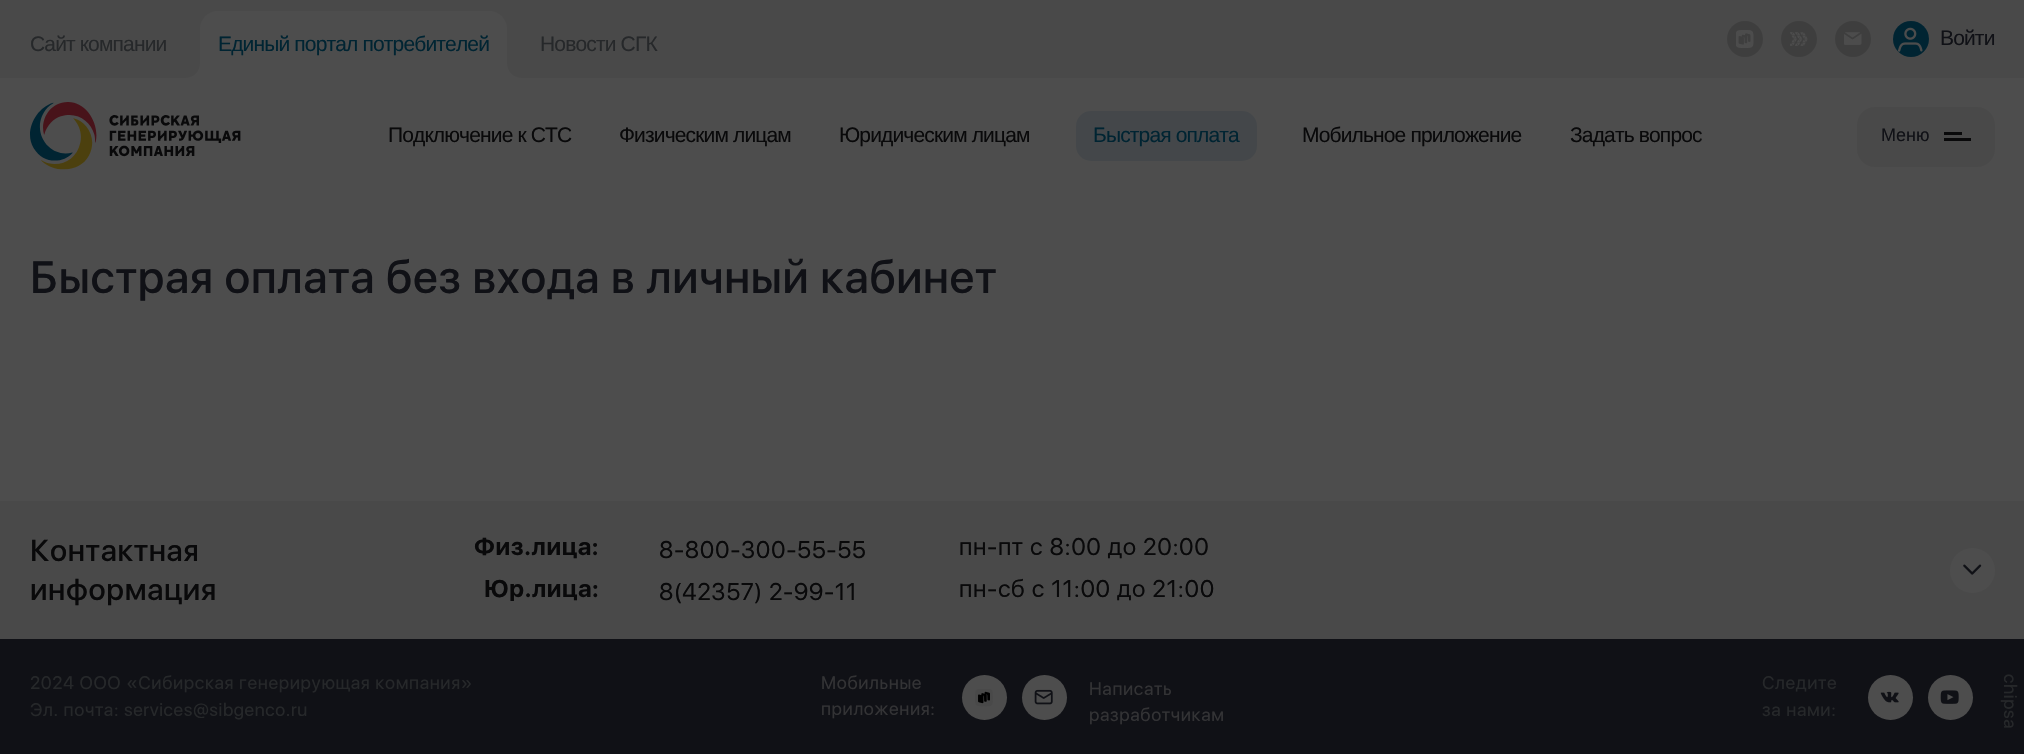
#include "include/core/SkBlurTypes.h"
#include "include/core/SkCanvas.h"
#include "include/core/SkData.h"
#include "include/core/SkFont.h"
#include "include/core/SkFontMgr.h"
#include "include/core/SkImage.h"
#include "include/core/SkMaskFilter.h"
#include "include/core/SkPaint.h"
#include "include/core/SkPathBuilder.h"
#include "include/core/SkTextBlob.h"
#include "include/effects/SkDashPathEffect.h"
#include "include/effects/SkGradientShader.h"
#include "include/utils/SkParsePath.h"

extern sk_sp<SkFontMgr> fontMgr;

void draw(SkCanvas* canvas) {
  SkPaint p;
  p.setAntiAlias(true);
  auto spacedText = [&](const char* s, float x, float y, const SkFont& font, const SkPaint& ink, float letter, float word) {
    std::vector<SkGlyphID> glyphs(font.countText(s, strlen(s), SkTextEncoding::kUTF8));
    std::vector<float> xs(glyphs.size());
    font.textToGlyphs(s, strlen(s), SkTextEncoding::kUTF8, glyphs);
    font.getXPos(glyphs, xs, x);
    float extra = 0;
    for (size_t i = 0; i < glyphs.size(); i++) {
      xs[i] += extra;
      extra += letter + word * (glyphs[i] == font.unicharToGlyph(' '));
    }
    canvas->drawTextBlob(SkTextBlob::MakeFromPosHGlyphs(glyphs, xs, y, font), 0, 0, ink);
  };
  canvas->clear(SkColorSetRGB(77, 77, 77));
  p.setColor(SkColorSetRGB(73, 73, 73));
  canvas->drawRect(SkRect::MakeLTRB(0, 0, 2024, 78), p);
  p.setColor(SkColorSetRGB(77, 77, 77));
  canvas->drawPath(SkPathBuilder().moveTo(218, 11).lineTo(489, 11).cubicTo(499, 11, 507, 19, 507, 29).lineTo(507, 78).lineTo(200, 78).lineTo(200, 29).cubicTo(200, 19, 208, 11, 218, 11).close().detach(), p);
  canvas->drawRect(SkRect::MakeLTRB(185, 63, 200, 78), p);
  p.setColor(SkColorSetRGB(73, 73, 73));
  canvas->drawPath(SkPathBuilder().moveTo(185, 48).lineTo(200, 48).lineTo(200, 63).cubicTo(200, 71.5f, 193.5f, 78, 185, 78).close().detach(), p);
  p.setColor(SkColorSetRGB(77, 77, 77));
  canvas->drawRect(SkRect::MakeLTRB(507, 63, 522, 78), p);
  p.setColor(SkColorSetRGB(73, 73, 73));
  canvas->drawPath(SkPathBuilder().moveTo(507, 48).lineTo(522, 48).lineTo(522, 78).cubicTo(513.5f, 78, 507, 71.5f, 507, 63).close().detach(), p);
  p.setColor(SkColorSetRGB(62, 62, 62));
  canvas->drawCircle(1745, 39, 18, p);
  canvas->drawImageRect(SkImages::DeferredFromEncodedData(SkData::MakeFromFileName("images/1.png")), SkRect::MakeLTRB(1736, 30, 1754, 48), SkSamplingOptions());
  canvas->drawCircle(1799, 39, 18, p);
  canvas->drawImageRect(SkImages::DeferredFromEncodedData(SkData::MakeFromFileName("images/2.png")), SkRect::MakeLTRB(1790, 32, 1808, 46), SkSamplingOptions());
  canvas->drawCircle(1853, 39, 18, p);
  canvas->drawImageRect(SkImages::DeferredFromEncodedData(SkData::MakeFromFileName("images/3.png")), SkRect::MakeLTRB(1844, 32, 1862, 45), SkSamplingOptions());
  p.setColor(SkColorSetRGB(0, 36, 50));
  canvas->drawCircle(1911, 39, 18, p);
  canvas->drawImageRect(SkImages::DeferredFromEncodedData(SkData::MakeFromFileName("images/4.png")), SkRect::MakeLTRB(1898, 27, 1923, 52), SkSamplingOptions());
  canvas->drawImageRect(SkImages::DeferredFromEncodedData(SkData::MakeFromFileName("images/5.png")), SkRect::MakeLTRB(30, 102, 241, 170), SkSamplingOptions());
  p.setColor(SkColorSetRGB(68, 71, 74));
  canvas->drawRoundRect(SkRect::MakeLTRB(1076, 111, 1257, 161), 15, 15, p);
  p.setColor(SkColorSetRGB(73, 73, 73));
  canvas->drawRoundRect(SkRect::MakeLTRB(1857, 107, 1995, 167), 18, 18, p);
  p.setColor(SkColorSetRGB(9, 9, 10));
  canvas->drawRect(SkRect::MakeLTRB(1944, 132, 1962, 135), p);
  canvas->drawRect(SkRect::MakeLTRB(1944, 138, 1971, 141), p);
  p.setColor(SkColorSetRGB(73, 73, 73));
  canvas->drawRect(SkRect::MakeLTRB(0, 501, 2024, 639), p);
  p.setColor(SkColorSetRGB(77, 77, 77));
  canvas->drawCircle(1972.5f, 570.5f, 22.5f, p);
  canvas->drawImageRect(SkImages::DeferredFromEncodedData(SkData::MakeFromFileName("images/6.png")), SkRect::MakeLTRB(1963, 564, 1982, 575), SkSamplingOptions());
  p.setColor(SkColorSetRGB(16, 17, 22));
  canvas->drawRect(SkRect::MakeLTRB(0, 639, 2024, 754), p);
  p.setColor(SkColorSetRGB(77, 77, 77));
  canvas->drawCircle(984.5f, 697.5f, 22.5f, p);
  canvas->drawImageRect(SkImages::DeferredFromEncodedData(SkData::MakeFromFileName("images/7.png")), SkRect::MakeLTRB(975, 689, 993, 707), SkSamplingOptions());
  canvas->drawCircle(1044.5f, 697.5f, 22.5f, p);
  canvas->drawImageRect(SkImages::DeferredFromEncodedData(SkData::MakeFromFileName("images/8.png")), SkRect::MakeLTRB(1034, 689, 1053, 705), SkSamplingOptions());
  canvas->drawCircle(1890.5f, 697.5f, 22.5f, p);
  canvas->drawImageRect(SkImages::DeferredFromEncodedData(SkData::MakeFromFileName("images/9.png")), SkRect::MakeLTRB(1880, 691, 1899, 703), SkSamplingOptions());
  canvas->drawCircle(1950.5f, 697.5f, 22.5f, p);
  canvas->drawImageRect(SkImages::DeferredFromEncodedData(SkData::MakeFromFileName("images/10.png")), SkRect::MakeLTRB(1940, 690, 1959, 704), SkSamplingOptions());
  SkFont font1(fontMgr->matchFamilyStyle("Liberation Sans", SkFontStyle::Normal()), 21);
  font1.setSubpixel(true);
  p.setColor(SkColorSetRGB(38, 40, 42));
  spacedText("Сайт компании", 30, 51, font1, p, -0.85f, 0);
  p.setColor(SkColorSetRGB(0, 36, 50));
  spacedText("Единый портал потребителей", 218, 51, font1, p, -0.85f, 0);
  p.setColor(SkColorSetRGB(38, 40, 42));
  spacedText("Новости СГК", 540, 51, font1, p, -0.85f, 0);
  p.setColor(SkColorSetRGB(16, 17, 22));
  spacedText("Войти", 1940, 45, font1, p, -0.85f, 0);
  p.setColor(SkColorSetRGB(9, 9, 10));
  spacedText("Подключение к CТС", 388, 142, font1, p, -0.85f, 0);
  spacedText("Физическим лицам", 619, 142, font1, p, -0.85f, 0);
  spacedText("Юридическим лицам", 839, 142, font1, p, -0.85f, 0);
  p.setColor(SkColorSetRGB(0, 36, 50));
  spacedText("Быстрая оплата", 1093, 142, font1, p, -0.85f, 0);
  p.setColor(SkColorSetRGB(9, 9, 10));
  spacedText("Мобильное приложение", 1302, 142, font1, p, -0.85f, 0);
  spacedText("Задать вопрос", 1570, 142, font1, p, -0.85f, 0);
  {
    const SkColor colors[] = {SkColorSetARGB(0, 77, 77, 77), SkColorSetARGB(153, 77, 77, 77), SkColorSetRGB(77, 77, 77), SkColorSetRGB(77, 77, 77)};
    const float stops[] = {0, 0.6f, 0.8f, 1};
    const SkPoint ends[] = {{1698, 136}, {1721, 136}};
    p.setShader(SkGradientShader::MakeLinear(ends, colors, stops, 4, SkTileMode::kClamp));
    p.setAlpha(255);
  }
  canvas->drawRect(SkRect::MakeLTRB(1699, 131, 1702, 142), p);
  SkFont font2(fontMgr->matchFamilyStyle("Liberation Sans", SkFontStyle::Normal()), 18);
  font2.setSubpixel(true);
  p.setShader(nullptr);
  p.setColor(SkColorSetRGB(16, 17, 22));
  canvas->drawString("Меню", 1881, 141, font2, p);
  SkFont font3(fontMgr->matchFamilyStyle("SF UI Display", SkFontStyle(500, SkFontStyle::kNormal_Width, SkFontStyle::kUpright_Slant)), 45);
  font3.setSubpixel(true);
  spacedText("Быстрая оплата без входа в личный кабинет", 30, 293, font3, p, 0.6f, 0);
  SkFont font4(fontMgr->matchFamilyStyle("SF UI Display", SkFontStyle(500, SkFontStyle::kNormal_Width, SkFontStyle::kUpright_Slant)), 30);
  font4.setSubpixel(true);
  p.setColor(SkColorSetRGB(9, 9, 10));
  spacedText("Контактная", 30, 561, font4, p, 0.6f, 0);
  spacedText("информация", 30, 600, font4, p, 0.6f, 0);
  SkFont font5(fontMgr->matchFamilyStyle("SF UI Display", SkFontStyle::Bold()), 24);
  font5.setSubpixel(true);
  spacedText("Физ.лица:", 474, 555, font5, p, 0.6f, 0);
  SkFont font6(fontMgr->matchFamilyStyle("SF UI Display", SkFontStyle::Normal()), 24);
  font6.setSubpixel(true);
  spacedText("8-800-300-55-55", 659, 558, font6, p, 0.6f, 0);
  spacedText("пн-пт с 8:00 до 20:00", 959, 555, font6, p, 0.6f, 0);
  spacedText("Юр.лица:", 484, 597, font5, p, 0.6f, 0);
  spacedText("8(42357) 2-99-11", 659, 600, font6, p, 0.6f, 0);
  spacedText("пн-сб с 11:00 до 21:00", 959, 597, font6, p, 0.6f, 0);
  SkFont font7(fontMgr->matchFamilyStyle("SF UI Display", SkFontStyle::Normal()), 18);
  font7.setSubpixel(true);
  p.setColor(SkColorSetRGB(38, 40, 42));
  spacedText("2024 ООО «Сибирская генерирующая компания»", 30, 689, font7, p, 0.6f, 0);
  spacedText("Эл. почта: services@sibgenco.ru", 30, 716, font7, p, 0.6f, 0);
  p.setColor(SkColorSetRGB(51, 51, 53));
  spacedText("Мобильные", 821, 689, font7, p, 0.6f, 0);
  spacedText("приложения:", 821, 715, font7, p, 0.6f, 0);
  spacedText("Написать", 1089, 695, font7, p, 0.6f, 0);
  spacedText("разработчикам", 1089, 721, font7, p, 0.6f, 0);
  p.setColor(SkColorSetRGB(38, 40, 42));
  spacedText("Следите", 1762, 689, font7, p, 0.6f, 0);
  spacedText("за нами:", 1762, 716, font7, p, 0.6f, 0);
  canvas->save();
  canvas->rotate(90, 2004, 674);
  spacedText("chipsa", 2004, 674, font7, p, 0.6f, 0);
  canvas->restore();
}
